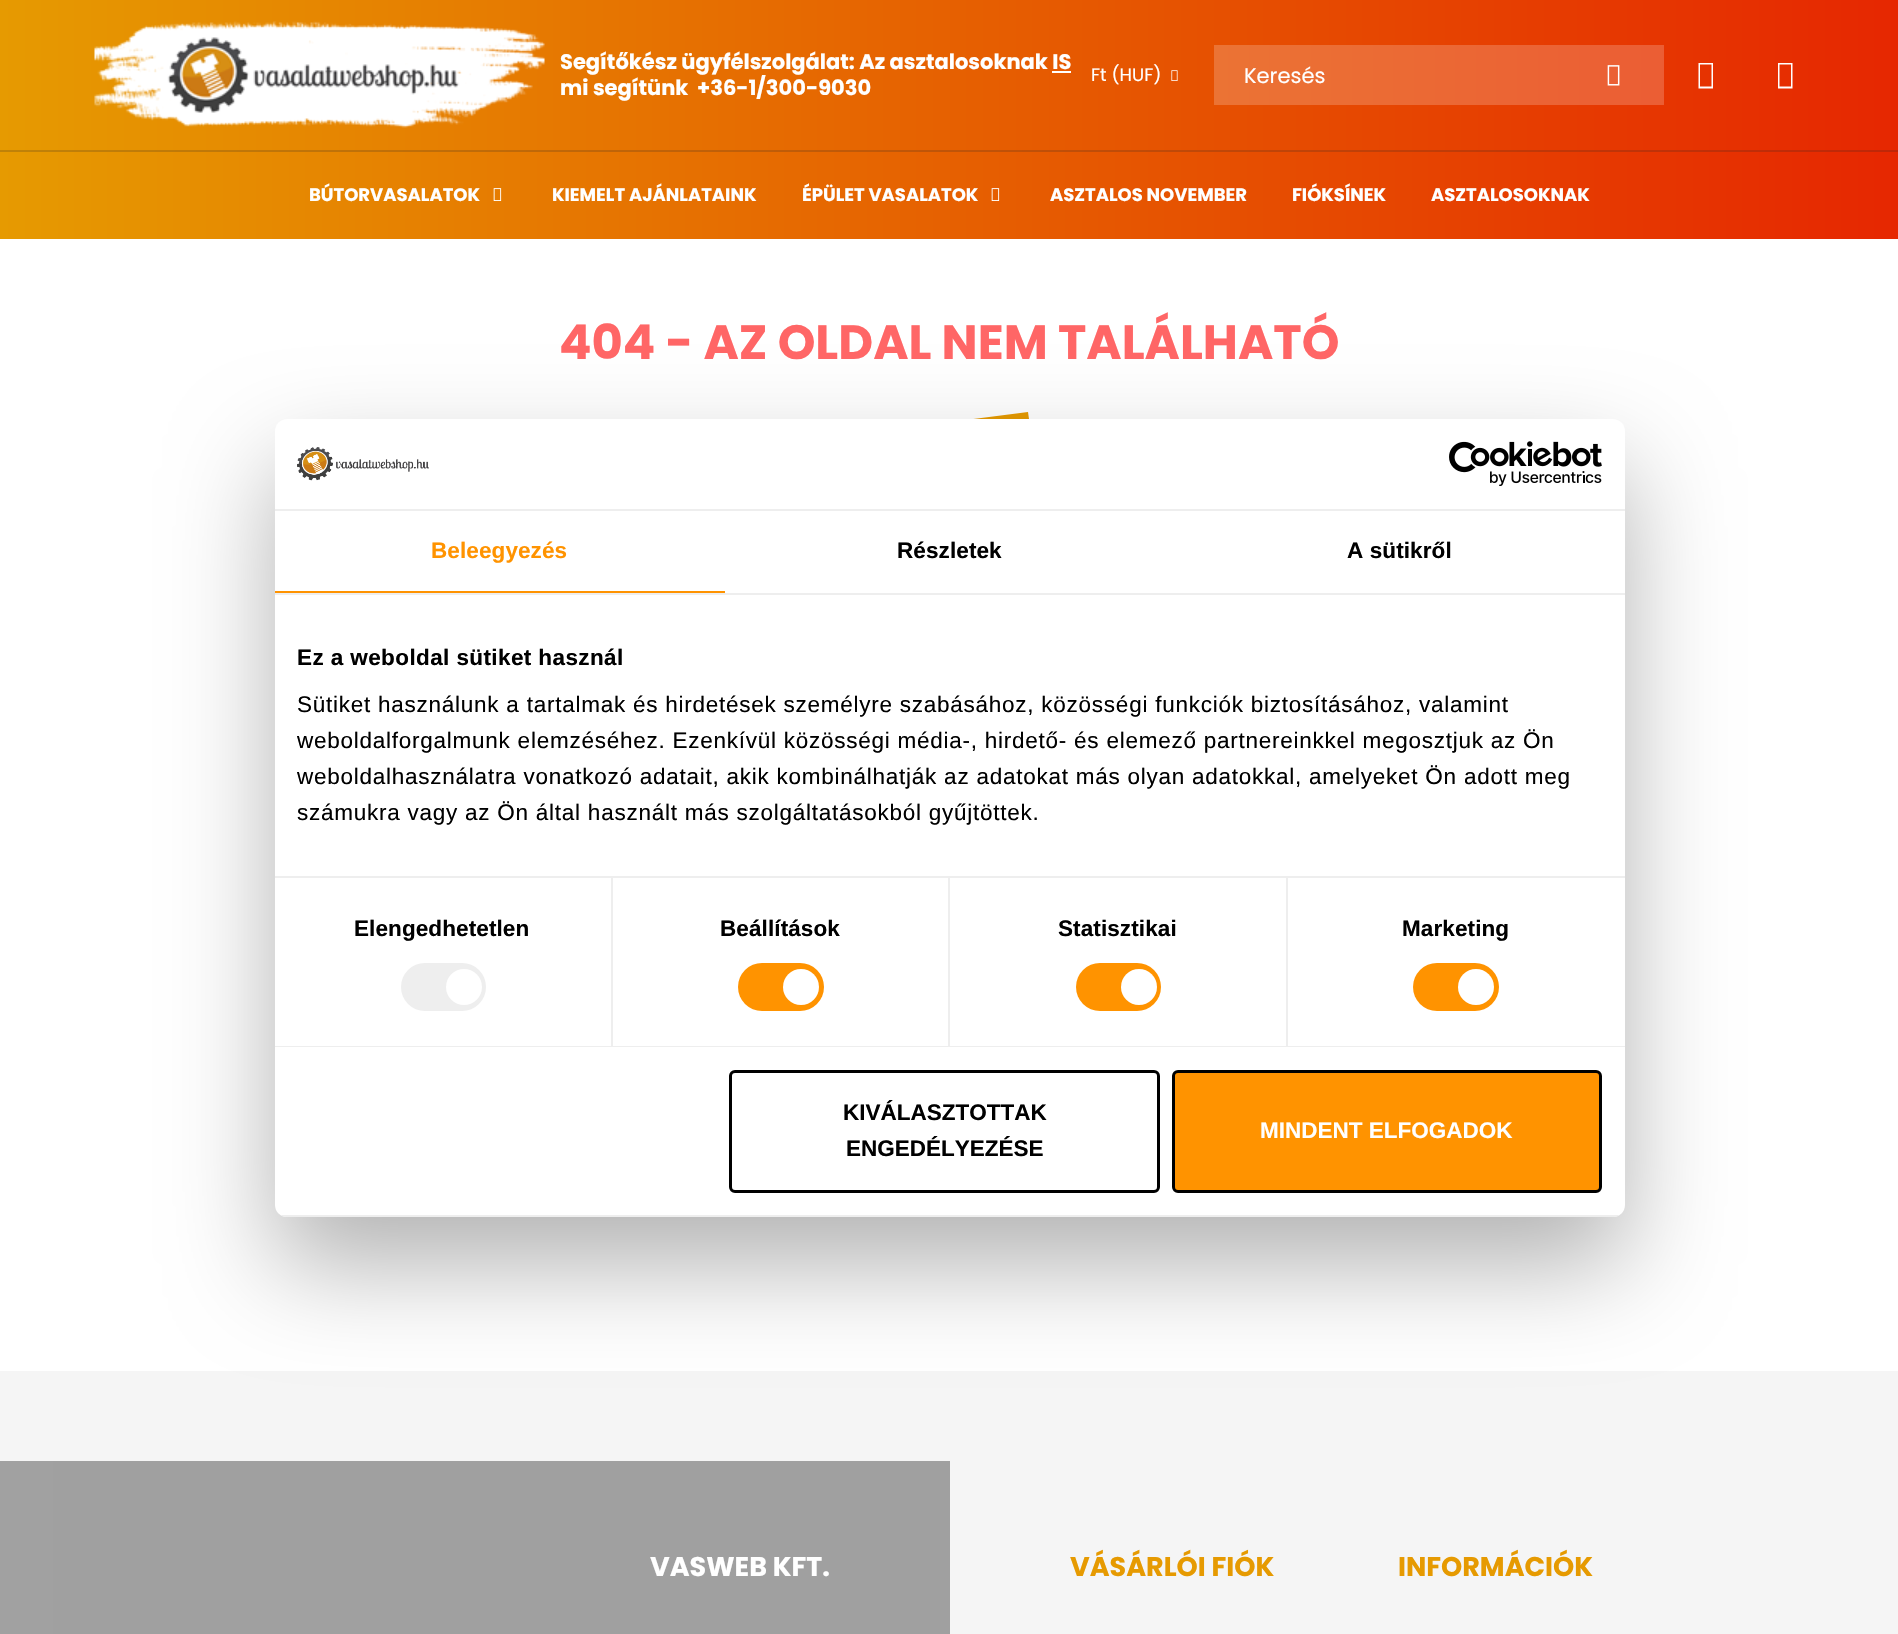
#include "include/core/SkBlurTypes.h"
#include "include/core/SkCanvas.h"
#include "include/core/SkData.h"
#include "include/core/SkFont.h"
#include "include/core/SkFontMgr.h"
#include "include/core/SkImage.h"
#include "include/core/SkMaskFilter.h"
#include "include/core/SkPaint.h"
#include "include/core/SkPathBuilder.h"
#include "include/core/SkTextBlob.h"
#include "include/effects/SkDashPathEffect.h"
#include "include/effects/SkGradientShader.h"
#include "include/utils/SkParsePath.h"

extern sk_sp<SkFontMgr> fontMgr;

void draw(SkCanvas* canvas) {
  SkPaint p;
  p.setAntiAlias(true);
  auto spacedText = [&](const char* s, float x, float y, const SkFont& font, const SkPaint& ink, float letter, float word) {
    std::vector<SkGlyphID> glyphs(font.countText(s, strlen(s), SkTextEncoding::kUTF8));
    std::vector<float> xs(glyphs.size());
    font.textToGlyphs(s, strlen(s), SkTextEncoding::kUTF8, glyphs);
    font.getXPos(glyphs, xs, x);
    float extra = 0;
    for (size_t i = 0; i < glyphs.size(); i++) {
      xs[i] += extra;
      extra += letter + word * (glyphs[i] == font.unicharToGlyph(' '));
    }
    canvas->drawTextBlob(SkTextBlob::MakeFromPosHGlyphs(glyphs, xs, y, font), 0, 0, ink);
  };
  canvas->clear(SK_ColorWHITE);
  {
    const SkColor colors[] = {SkColorSetRGB(230, 154, 1), SkColorSetRGB(230, 39, 1)};
    const float stops[] = {0, 1};
    const SkPoint ends[] = {{0, 75}, {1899, 75}};
    p.setShader(SkGradientShader::MakeLinear(ends, colors, stops, 2, SkTileMode::kClamp));
    p.setAlpha(255);
  }
  canvas->drawRect(SkRect::MakeLTRB(0, 0, 1898, 150), p);
  {
    const SkColor colors[] = {SkColorSetRGB(235, 174, 52), SkColorSetRGB(235, 82, 52)};
    const float stops[] = {0, 1};
    const SkPoint ends[] = {{0, 75}, {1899, 75}};
    p.setShader(SkGradientShader::MakeLinear(ends, colors, stops, 2, SkTileMode::kClamp));
    p.setAlpha(255);
  }
  canvas->drawRect(SkRect::MakeLTRB(1214, 45, 1664, 105), p);
  canvas->drawImageRect(SkImages::DeferredFromEncodedData(SkData::MakeFromFileName("images/1.png")), SkRect::MakeLTRB(94, 21, 545, 128), SkSamplingOptions());
  p.setShader(nullptr);
  p.setColor(SK_ColorWHITE);
  canvas->drawRect(SkRect::MakeLTRB(1052, 71, 1071, 73), p);
  canvas->drawImageRect(SkImages::DeferredFromEncodedData(SkData::MakeFromFileName("images/2.png")), SkRect::MakeLTRB(1171, 70, 1178, 81), SkSamplingOptions());
  canvas->drawImageRect(SkImages::DeferredFromEncodedData(SkData::MakeFromFileName("images/3.png")), SkRect::MakeLTRB(1607, 65, 1620, 86), SkSamplingOptions());
  canvas->drawPath(SkPathBuilder().moveTo(1698.5f, 88.5f).lineTo(1698.5f, 63).lineTo(1713, 63).lineTo(1713, 88.5f).close().moveTo(1700, 86.5f).lineTo(1711.5f, 86.5f).lineTo(1711.5f, 64.5f).lineTo(1700, 64.5f).close().detach(), p);
  canvas->drawPath(SkPathBuilder().moveTo(1778, 88.5f).lineTo(1778, 63).lineTo(1792.5f, 63).lineTo(1792.5f, 88.5f).close().moveTo(1779.5f, 86.5f).lineTo(1791, 86.5f).lineTo(1791, 64.5f).lineTo(1779.5f, 64.5f).close().detach(), p);
  {
    const SkColor colors[] = {SkColorSetRGB(230, 154, 1), SkColorSetRGB(230, 39, 1)};
    const float stops[] = {0, 1};
    const SkPoint ends[] = {{0, 195}, {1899, 195}};
    p.setShader(SkGradientShader::MakeLinear(ends, colors, stops, 2, SkTileMode::kClamp));
    p.setAlpha(255);
  }
  canvas->drawRect(SkRect::MakeLTRB(0, 152, 1898, 239), p);
  {
    const SkColor colors[] = {SkColorSetRGB(191, 130, 8), SkColorSetRGB(191, 38, 8)};
    const float stops[] = {0, 1};
    const SkPoint ends[] = {{0, 195}, {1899, 195}};
    p.setShader(SkGradientShader::MakeLinear(ends, colors, stops, 2, SkTileMode::kClamp));
    p.setAlpha(255);
  }
  canvas->drawRect(SkRect::MakeLTRB(0, 150, 1898, 152), p);
  canvas->drawImageRect(SkImages::DeferredFromEncodedData(SkData::MakeFromFileName("images/4.png")), SkRect::MakeLTRB(493, 188, 502, 201), SkSamplingOptions());
  canvas->drawImageRect(SkImages::DeferredFromEncodedData(SkData::MakeFromFileName("images/5.png")), SkRect::MakeLTRB(991, 188, 1000, 201), SkSamplingOptions());
  {
    const SkColor colors[] = {SK_ColorWHITE, SkColorSetRGB(221, 221, 221), SK_ColorWHITE};
    const float stops[] = {0.1f, 0.5f, 0.9f};
    const SkPoint ends[] = {{95, 579}, {1805, 579}};
    p.setShader(SkGradientShader::MakeLinear(ends, colors, stops, 3, SkTileMode::kClamp));
    p.setAlpha(255);
  }
  canvas->drawRect(SkRect::MakeLTRB(316, 551, 1584, 608), p);
  {
    const SkColor colors[] = {SK_ColorWHITE, SkColorSetARGB(0, 255, 255, 255)};
    const float stops[] = {0, 1};
    const SkPoint ends[] = {{950, 608}, {950, 551}};
    p.setShader(SkGradientShader::MakeLinear(ends, colors, stops, 2, SkTileMode::kClamp));
    p.setAlpha(255);
  }
  canvas->drawRect(SkRect::MakeLTRB(316, 555, 1584, 608), p);
  p.setShader(nullptr);
  p.setColor(SkColorSetRGB(230, 154, 1));
  canvas->drawPath(SkPathBuilder().moveTo(1028, 412).lineTo(1047, 546).lineTo(969, 557).lineTo(950, 422).close().moveTo(1020, 423).lineTo(961, 431).lineTo(978, 546).lineTo(1036, 538).close().detach(), p);
  p.setColor(SkColorSetRGB(245, 245, 245));
  canvas->drawRect(SkRect::MakeLTRB(0, 1371, 1898, 1634), p);
  p.setColor(SkColorSetRGB(160, 160, 160));
  canvas->drawRect(SkRect::MakeLTRB(53, 1461, 950, 1634), p);
  p.setColor(SkColorSetRGB(161, 161, 161));
  canvas->drawRect(SkRect::MakeLTRB(0, 1461, 53, 1634), p);
  p.setColor(SkColorSetARGB(77, 0, 0, 0));
  p.setMaskFilter(SkMaskFilter::MakeBlur(kNormal_SkBlurStyle, 51));
  canvas->drawRoundRect(SkRect::MakeLTRB(275, 467, 1625, 1265), 12, 12, p);
  p.setMaskFilter(nullptr);
  p.setColor(SK_ColorWHITE);
  canvas->drawRoundRect(SkRect::MakeLTRB(275, 419, 1625, 1217), 12, 12, p);
  p.setColor(SkColorSetRGB(238, 238, 238));
  canvas->drawRect(SkRect::MakeLTRB(275, 509, 1625, 511), p);
  canvas->drawImageRect(SkImages::DeferredFromEncodedData(SkData::MakeFromFileName("images/6.png")), SkRect::MakeLTRB(297, 447, 429, 481), SkSamplingOptions());
  canvas->drawImageRect(SkImages::DeferredFromEncodedData(SkData::MakeFromFileName("images/7.png")), SkRect::MakeLTRB(1449, 441, 1602, 486), SkSamplingOptions());
  canvas->drawRect(SkRect::MakeLTRB(275, 593, 1625, 595), p);
  p.setColor(SkColorSetRGB(255, 147, 0));
  canvas->drawRect(SkRect::MakeLTRB(275, 591, 725, 593), p);
  p.setColor(SkColorSetRGB(238, 238, 238));
  canvas->drawRect(SkRect::MakeLTRB(275, 876, 1625, 878), p);
  canvas->drawRect(SkRect::MakeLTRB(275, 1046, 1625, 1047), p);
  canvas->drawRect(SkRect::MakeLTRB(611, 878, 613, 1046), p);
  canvas->drawRoundRect(SkRect::MakeLTRB(401, 963, 486, 1011), 24, 24, p);
  p.setColor(SK_ColorWHITE);
  canvas->drawCircle(464, 987, 18, p);
  p.setColor(SkColorSetRGB(238, 238, 238));
  canvas->drawRect(SkRect::MakeLTRB(948, 878, 950, 1046), p);
  p.setColor(SkColorSetRGB(255, 147, 0));
  canvas->drawRoundRect(SkRect::MakeLTRB(738, 963, 824, 1011), 24, 24, p);
  p.setColor(SK_ColorWHITE);
  canvas->drawCircle(801, 987, 18, p);
  p.setColor(SkColorSetRGB(238, 238, 238));
  canvas->drawRect(SkRect::MakeLTRB(1286, 878, 1288, 1046), p);
  p.setColor(SkColorSetRGB(255, 147, 0));
  canvas->drawRoundRect(SkRect::MakeLTRB(1076, 963, 1161, 1011), 24, 24, p);
  p.setColor(SK_ColorWHITE);
  canvas->drawCircle(1139, 987, 18, p);
  p.setColor(SkColorSetRGB(255, 147, 0));
  canvas->drawRoundRect(SkRect::MakeLTRB(1413, 963, 1499, 1011), 24, 24, p);
  p.setColor(SK_ColorWHITE);
  canvas->drawCircle(1476, 987, 18, p);
  canvas->save();
  canvas->clipPath(SkPathBuilder().moveTo(287, 419).lineTo(1613, 419).cubicTo(1619.5f, 419, 1625, 424.5f, 1625, 431).lineTo(1625, 1205).cubicTo(1625, 1211.5f, 1619.5f, 1217, 1613, 1217).lineTo(287, 1217).cubicTo(280.5f, 1217, 275, 1211.5f, 275, 1205).lineTo(275, 431).cubicTo(275, 424.5f, 280.5f, 419, 287, 419).close().detach(), true);
  p.setColor(SkColorSetRGB(238, 238, 238));
  canvas->drawRect(SkRect::MakeLTRB(275, 1215, 1625, 1217), p);
  canvas->restore();
  p.setStyle(SkPaint::kStroke_Style);
  p.setStrokeWidth(3);
  p.setColor(SK_ColorBLACK);
  canvas->drawRoundRect(SkRect::MakeLTRB(730.5f, 1071.5f, 1158.5f, 1191.5f), 4.5f, 4.5f, p);
  p.setStyle(SkPaint::kFill_Style);
  p.setColor(SkColorSetRGB(255, 147, 0));
  canvas->drawRoundRect(SkRect::MakeLTRB(1173.5f, 1071.5f, 1600.5f, 1191.5f), 4.5f, 4.5f, p);
  p.setStyle(SkPaint::kStroke_Style);
  p.setColor(SK_ColorBLACK);
  canvas->drawRoundRect(SkRect::MakeLTRB(1173.5f, 1071.5f, 1600.5f, 1191.5f), 4.5f, 4.5f, p);
  SkFont font1(fontMgr->matchFamilyStyle("Poppins", SkFontStyle::Bold()), 21);
  font1.setSubpixel(true);
  p.setStyle(SkPaint::kFill_Style);
  p.setColor(SK_ColorWHITE);
  canvas->drawString("Segítőkész ügyfélszolgálat: Az asztalosoknak IS", 560, 69, font1, p);
  canvas->drawString("mi segítünk", 560, 95, font1, p);
  canvas->drawString("+36-1/300-9030", 697, 95, font1, p);
  SkFont font2(fontMgr->matchFamilyStyle("Poppins", SkFontStyle::Normal()), 18);
  font2.setSubpixel(true);
  canvas->drawString("Ft (HUF)", 1091, 81, font2, p);
  SkFont font3(fontMgr->matchFamilyStyle("Poppins", SkFontStyle::Normal()), 21);
  font3.setSubpixel(true);
  canvas->drawString("Keresés", 1244, 83, font3, p);
  SkFont font4(fontMgr->matchFamilyStyle("Poppins", SkFontStyle::Bold()), 18);
  font4.setSubpixel(true);
  canvas->drawString("BÚTORVASALATOK", 309, 201, font4, p);
  canvas->drawString("KIEMELT AJÁNLATAINK", 552, 201, font4, p);
  canvas->drawString("ÉPÜLET VASALATOK", 802, 201, font4, p);
  canvas->drawString("ASZTALOS NOVEMBER", 1050, 201, font4, p);
  canvas->drawString("FIÓKSÍNEK", 1292, 201, font4, p);
  canvas->drawString("ASZTALOSOKNAK", 1431, 201, font4, p);
  SkFont font5(fontMgr->matchFamilyStyle("Poppins", SkFontStyle::Bold()), 48);
  font5.setSubpixel(true);
  p.setColor(SkColorSetRGB(255, 102, 102));
  canvas->drawString("404 - AZ OLDAL NEM TALÁLHATÓ", 559, 359, font5, p);
  SkFont font6(fontMgr->matchFamilyStyle("Poppins", SkFontStyle::Bold()), 27);
  font6.setSubpixel(true);
  p.setColor(SK_ColorWHITE);
  canvas->drawString("VASWEB KFT.", 650, 1576, font6, p);
  p.setColor(SkColorSetRGB(230, 154, 1));
  canvas->drawString("VÁSÁRLÓI FIÓK", 1070, 1576, font6, p);
  canvas->drawString("INFORMÁCIÓK", 1398, 1576, font6, p);
  SkFont font7(fontMgr->matchFamilyStyle("Liberation Sans", SkFontStyle::Bold()), 22.5f);
  font7.setSubpixel(true);
  p.setColor(SkColorSetRGB(255, 147, 0));
  spacedText("Beleegyezés", 431, 558, font7, p, 0.1f, 0);
  p.setColor(SK_ColorBLACK);
  spacedText("Részletek", 897, 558, font7, p, 0.1f, 0);
  spacedText("A sütikről", 1347, 558, font7, p, 0.1f, 0);
  spacedText("Ez a weboldal sütiket használ", 297, 665, font7, p, 0.4f, 0);
  SkFont font8(fontMgr->matchFamilyStyle("Liberation Sans", SkFontStyle::Normal()), 22.5f);
  font8.setSubpixel(true);
  spacedText("Sütiket használunk a tartalmak és hirdetések személyre szabásához, közösségi funkciók biztosításához, valamint", 297, 712, font8, p, 0.75f, 0);
  spacedText("weboldalforgalmunk elemzéséhez. Ezenkívül közösségi média-, hirdető- és elemező partnereinkkel megosztjuk az Ön", 297, 748, font8, p, 0.75f, 0);
  spacedText("weboldalhasználatra vonatkozó adatait, akik kombinálhatják az adatokat más olyan adatokkal, amelyeket Ön adott meg", 297, 784, font8, p, 0.75f, 0);
  spacedText("számukra vagy az Ön által használt más szolgáltatásokból gyűjtöttek.", 297, 820, font8, p, 0.75f, 0);
  spacedText("Elengedhetetlen", 354, 936, font7, p, 0.1f, 0);
  spacedText("Beállítások", 720, 936, font7, p, 0.1f, 0);
  spacedText("Statisztikai", 1058, 936, font7, p, 0.1f, 0);
  spacedText("Marketing", 1402, 936, font7, p, 0.1f, 0);
  canvas->drawString("KIVÁLASZTOTTAK", 843, 1120, font7, p);
  canvas->drawString("ENGEDÉLYEZÉSE", 846, 1156, font7, p);
  p.setColor(SK_ColorWHITE);
  canvas->drawString("MINDENT ELFOGADOK", 1260, 1138, font7, p);
}
